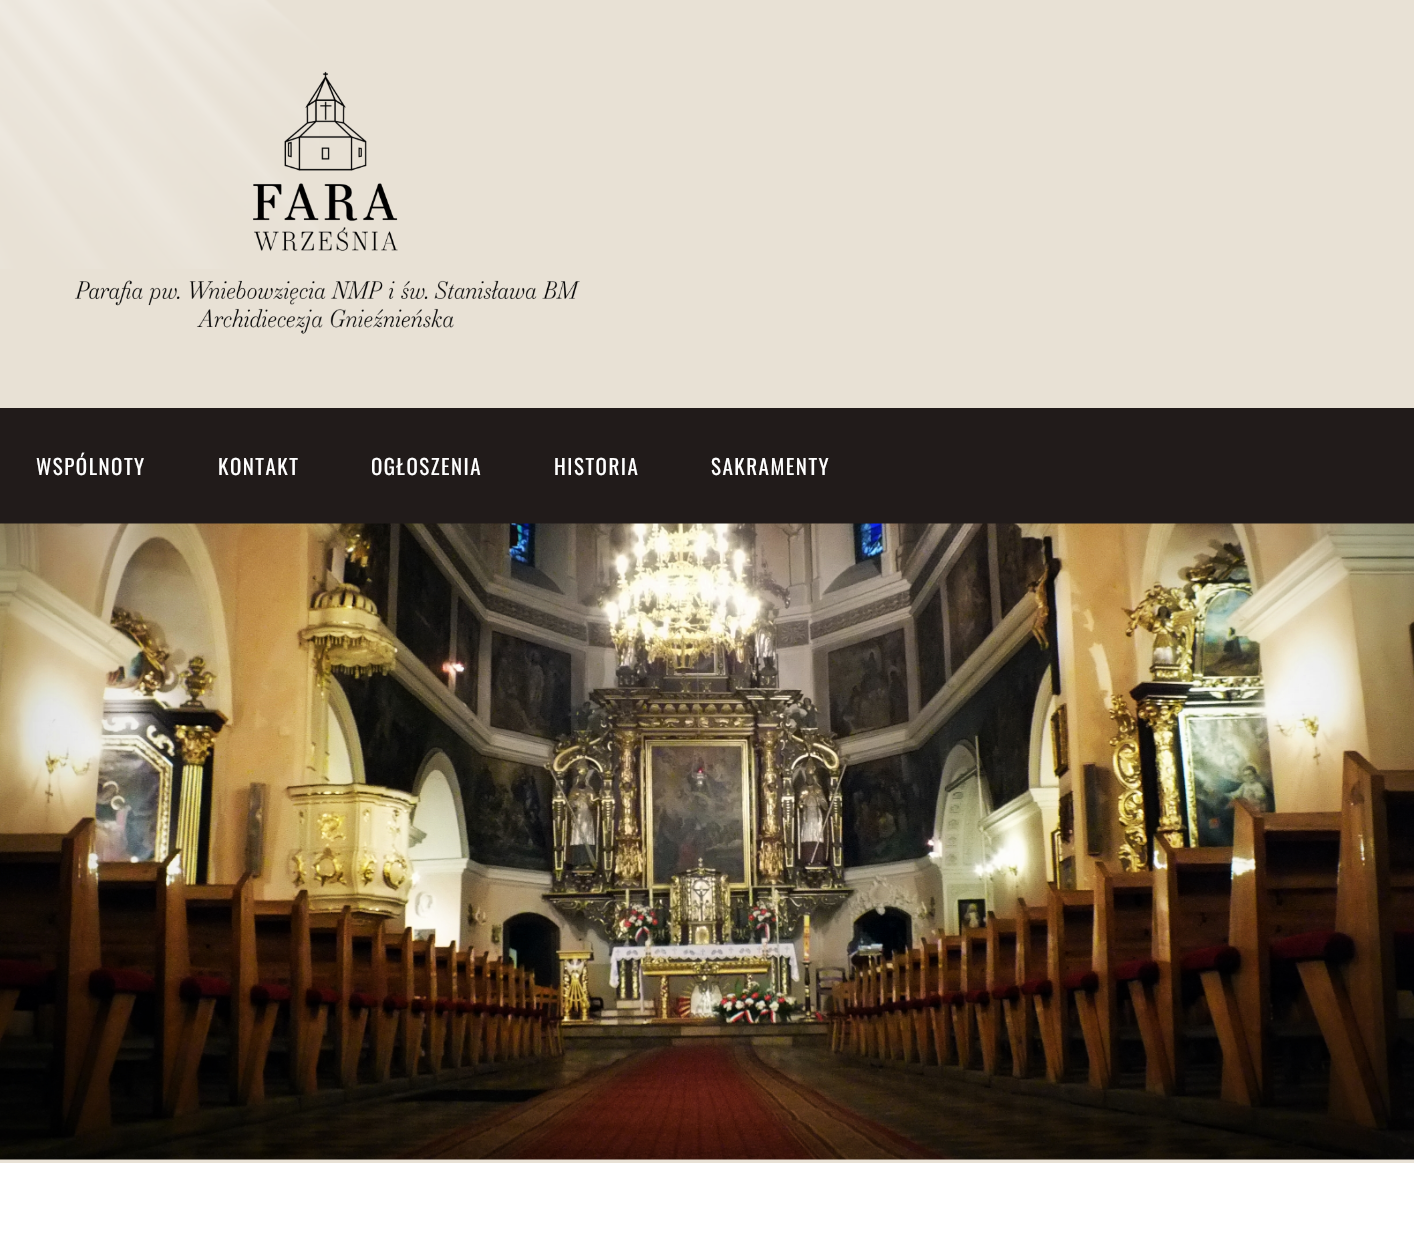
#include "include/core/SkBlurTypes.h"
#include "include/core/SkCanvas.h"
#include "include/core/SkData.h"
#include "include/core/SkFont.h"
#include "include/core/SkFontMgr.h"
#include "include/core/SkImage.h"
#include "include/core/SkMaskFilter.h"
#include "include/core/SkPaint.h"
#include "include/core/SkPathBuilder.h"
#include "include/core/SkTextBlob.h"
#include "include/effects/SkDashPathEffect.h"
#include "include/effects/SkGradientShader.h"
#include "include/utils/SkParsePath.h"

extern sk_sp<SkFontMgr> fontMgr;

void draw(SkCanvas* canvas) {
  SkPaint p;
  p.setAntiAlias(true);
  auto spacedText = [&](const char* s, float x, float y, const SkFont& font, const SkPaint& ink, float letter, float word) {
    std::vector<SkGlyphID> glyphs(font.countText(s, strlen(s), SkTextEncoding::kUTF8));
    std::vector<float> xs(glyphs.size());
    font.textToGlyphs(s, strlen(s), SkTextEncoding::kUTF8, glyphs);
    font.getXPos(glyphs, xs, x);
    float extra = 0;
    for (size_t i = 0; i < glyphs.size(); i++) {
      xs[i] += extra;
      extra += letter + word * (glyphs[i] == font.unicharToGlyph(' '));
    }
    canvas->drawTextBlob(SkTextBlob::MakeFromPosHGlyphs(glyphs, xs, y, font), 0, 0, ink);
  };
  canvas->clear(SkColorSetRGB(232, 225, 213));
  canvas->drawImageRect(SkImages::DeferredFromEncodedData(SkData::MakeFromFileName("images/1.png")), SkRect::MakeLTRB(0, 0, 319, 269), SkSamplingOptions());
  canvas->drawImageRect(SkImages::DeferredFromEncodedData(SkData::MakeFromFileName("images/2.png")), SkRect::MakeLTRB(74, 71, 580, 334), SkSamplingOptions());
  p.setColor(SkColorSetRGB(33, 27, 26));
  canvas->drawRect(SkRect::MakeLTRB(0, 408, 1414, 524), p);
  canvas->drawImageRect(SkImages::DeferredFromEncodedData(SkData::MakeFromFileName("images/3.png")), SkRect::MakeLTRB(0, 523, 1414, 1160), SkSamplingOptions());
  p.setColor(SK_ColorWHITE);
  canvas->drawRect(SkRect::MakeLTRB(0, 1163, 1414, 1248), p);
  SkFont font1(fontMgr->matchFamilyStyle("Oswald", SkFontStyle::Normal()), 21);
  font1.setSubpixel(true);
  spacedText("WSPÓLNOTY", 36, 475, font1, p, 1.5f, 0);
  spacedText("KONTAKT", 218, 475, font1, p, 1.5f, 0);
  spacedText("OGŁOSZENIA", 371, 475, font1, p, 1.5f, 0);
  spacedText("HISTORIA", 554, 475, font1, p, 1.5f, 0);
  spacedText("SAKRAMENTY", 711, 475, font1, p, 1.5f, 0);
}
